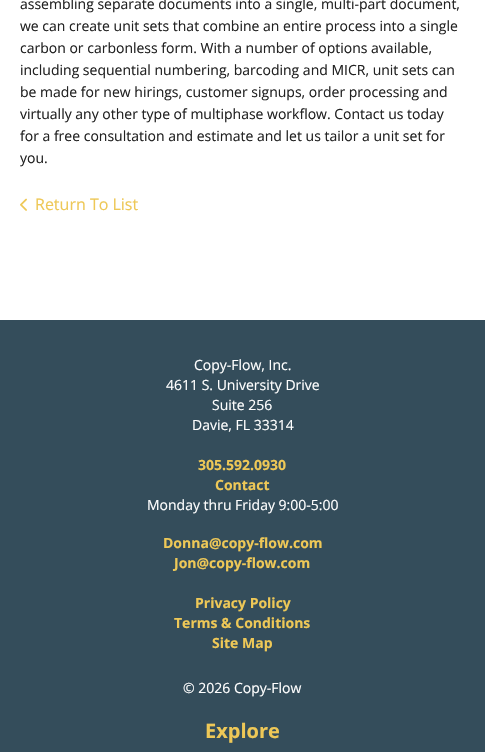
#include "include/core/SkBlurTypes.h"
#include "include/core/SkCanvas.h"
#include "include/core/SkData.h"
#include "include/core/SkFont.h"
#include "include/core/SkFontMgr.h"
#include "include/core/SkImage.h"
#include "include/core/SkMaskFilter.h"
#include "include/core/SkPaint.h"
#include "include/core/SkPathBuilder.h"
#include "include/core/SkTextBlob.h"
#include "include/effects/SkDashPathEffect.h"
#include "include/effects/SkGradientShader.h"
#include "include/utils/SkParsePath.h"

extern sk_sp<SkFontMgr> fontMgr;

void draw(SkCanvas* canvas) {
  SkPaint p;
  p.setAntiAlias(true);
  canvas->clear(SkColorSetRGB(52, 77, 91));
  p.setColor(SK_ColorWHITE);
  canvas->drawRect(SkRect::MakeLTRB(0, 0, 485, 320), p);
  canvas->drawImageRect(SkImages::DeferredFromEncodedData(SkData::MakeFromFileName("images/1.png")), SkRect::MakeLTRB(20, 198, 27, 211), SkSamplingOptions());
  SkFont font1(fontMgr->matchFamilyStyle("Open Sans", SkFontStyle::Normal()), 14);
  font1.setSubpixel(true);
  p.setColor(SkColorSetRGB(34, 34, 34));
  canvas->drawString("assembling separate documents into a single, multi-part document,", 20, 9, font1, p);
  canvas->drawString("we can create unit sets that combine an entire process into a single", 20, 31, font1, p);
  canvas->drawString("carbon or carbonless form. With a number of options available,", 20, 53, font1, p);
  canvas->drawString("including sequential numbering, barcoding and MICR, unit sets can", 20, 75, font1, p);
  canvas->drawString("be made for new hirings, customer signups, order processing and", 20, 97, font1, p);
  canvas->drawString("virtually any other type of multiphase workflow. Contact us today", 20, 119, font1, p);
  canvas->drawString("for a free consultation and estimate and let us tailor a unit set for", 20, 141, font1, p);
  canvas->drawString("you.", 20, 163, font1, p);
  SkFont font2(fontMgr->matchFamilyStyle("Open Sans", SkFontStyle::Normal()), 16);
  font2.setSubpixel(true);
  p.setColor(SkColorSetRGB(238, 200, 87));
  canvas->drawString("Return To List", 35, 210, font2, p);
  p.setColor(SK_ColorWHITE);
  canvas->drawString("Copy-Flow, Inc.", 194, 370, font1, p);
  canvas->drawString("4611 S. University Drive", 166, 390, font1, p);
  canvas->drawString("Suite 256", 212, 410, font1, p);
  canvas->drawString("Davie, FL 33314", 192, 430, font1, p);
  SkFont font3(fontMgr->matchFamilyStyle("Open Sans", SkFontStyle::Bold()), 14);
  font3.setSubpixel(true);
  p.setColor(SkColorSetRGB(238, 200, 87));
  canvas->drawString("305.592.0930", 198, 470, font3, p);
  canvas->drawString("Contact", 215, 490, font3, p);
  p.setColor(SK_ColorWHITE);
  canvas->drawString("Monday thru Friday 9:00-5:00", 147, 510, font1, p);
  p.setColor(SkColorSetRGB(238, 200, 87));
  canvas->drawString("Donna@copy-flow.com", 163, 548, font3, p);
  canvas->drawString("Jon@copy-flow.com", 174, 568, font3, p);
  canvas->drawString("Privacy Policy", 195, 608, font3, p);
  canvas->drawString("Terms & Conditions", 174, 628, font3, p);
  canvas->drawString("Site Map", 212, 648, font3, p);
  p.setColor(SK_ColorWHITE);
  canvas->drawString("© 2026 Copy-Flow", 183, 693, font1, p);
  SkFont font4(fontMgr->matchFamilyStyle("Open Sans", SkFontStyle::Bold()), 20);
  font4.setSubpixel(true);
  p.setColor(SkColorSetRGB(238, 200, 87));
  canvas->drawString("Explore", 205, 738, font4, p);
}
